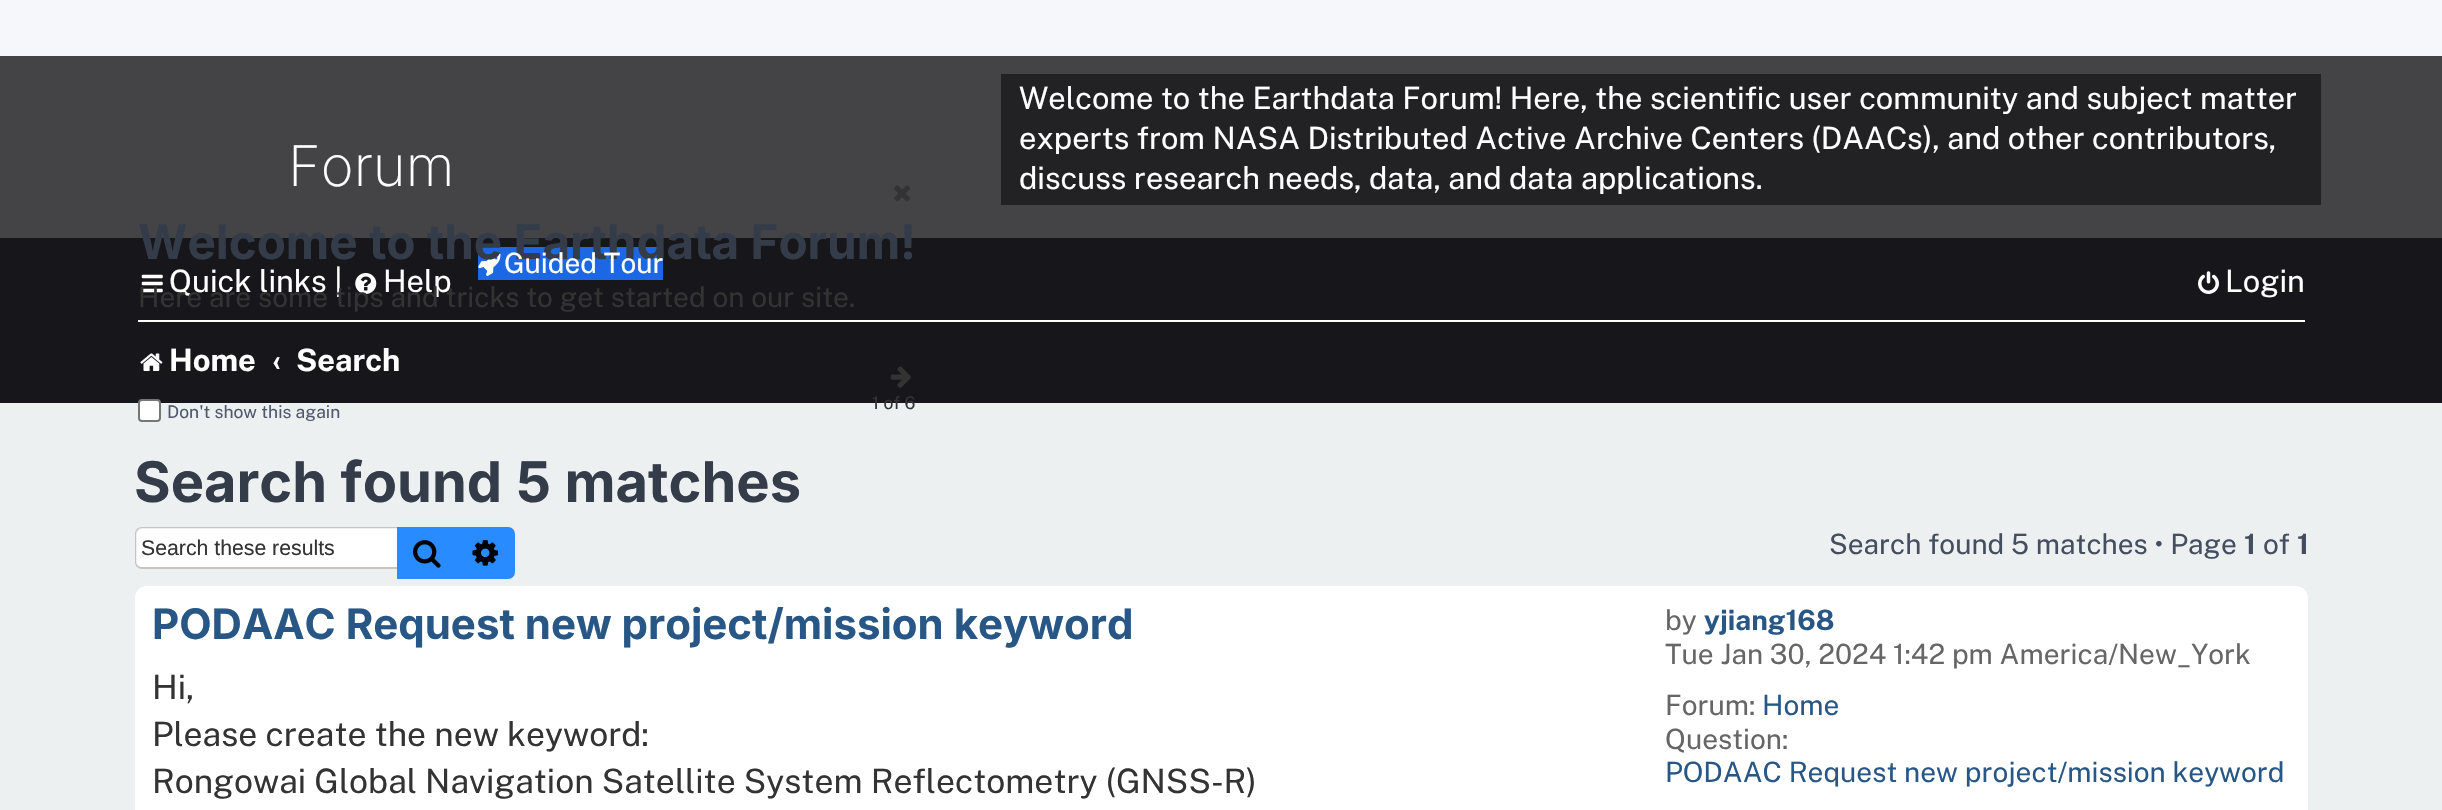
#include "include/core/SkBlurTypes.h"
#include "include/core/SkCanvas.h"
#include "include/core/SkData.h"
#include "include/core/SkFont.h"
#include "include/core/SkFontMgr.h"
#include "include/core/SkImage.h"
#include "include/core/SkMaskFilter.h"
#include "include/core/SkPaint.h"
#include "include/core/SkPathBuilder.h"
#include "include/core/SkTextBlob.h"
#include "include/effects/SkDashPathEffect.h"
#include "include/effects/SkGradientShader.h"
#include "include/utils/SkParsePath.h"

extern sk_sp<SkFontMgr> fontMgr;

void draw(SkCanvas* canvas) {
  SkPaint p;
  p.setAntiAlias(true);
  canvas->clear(SkColorSetRGB(246, 247, 250));
  p.setColor(SkColorSetRGB(236, 240, 241));
  canvas->drawRect(SkRect::MakeLTRB(0, 403, 2442, 810), p);
  p.setColor(SkColorSetRGB(68, 68, 71));
  canvas->drawRect(SkRect::MakeLTRB(0, 56, 2442, 238), p);
  p.setColor(SkColorSetRGB(34, 34, 36));
  canvas->drawRect(SkRect::MakeLTRB(1001, 74, 2321, 205), p);
  p.setColor(SkColorSetRGB(23, 23, 27));
  canvas->drawRect(SkRect::MakeLTRB(0, 238, 2442, 403), p);
  canvas->drawImageRect(SkImages::DeferredFromEncodedData(SkData::MakeFromFileName("images/1.png")), SkRect::MakeLTRB(894, 185, 910, 202), SkSamplingOptions());
  canvas->drawImageRect(SkImages::DeferredFromEncodedData(SkData::MakeFromFileName("images/2.png")), SkRect::MakeLTRB(890, 366, 911, 388), SkSamplingOptions());
  p.setColor(SK_ColorWHITE);
  canvas->drawRoundRect(SkRect::MakeLTRB(139, 400, 160, 421), 3, 3, p);
  p.setStyle(SkPaint::kStroke_Style);
  p.setStrokeWidth(2);
  p.setColor(SkColorSetRGB(118, 118, 118));
  canvas->drawRoundRect(SkRect::MakeLTRB(139, 400, 160, 421), 3, 3, p);
  p.setStyle(SkPaint::kFill_Style);
  p.setColor(SkColorSetRGB(28, 103, 227));
  canvas->drawRect(SkRect::MakeLTRB(478, 247, 663, 280), p);
  canvas->drawImageRect(SkImages::DeferredFromEncodedData(SkData::MakeFromFileName("images/3.png")), SkRect::MakeLTRB(478, 253, 501, 276), SkSamplingOptions());
  canvas->drawImageRect(SkImages::DeferredFromEncodedData(SkData::MakeFromFileName("images/4.png")), SkRect::MakeLTRB(141, 274, 163, 293), SkSamplingOptions());
  canvas->drawImageRect(SkImages::DeferredFromEncodedData(SkData::MakeFromFileName("images/5.png")), SkRect::MakeLTRB(355, 273, 377, 294), SkSamplingOptions());
  canvas->drawImageRect(SkImages::DeferredFromEncodedData(SkData::MakeFromFileName("images/6.png")), SkRect::MakeLTRB(2198, 271, 2219, 294), SkSamplingOptions());
  p.setColor(SK_ColorWHITE);
  canvas->drawRect(SkRect::MakeLTRB(138, 320, 2305, 322), p);
  canvas->drawImageRect(SkImages::DeferredFromEncodedData(SkData::MakeFromFileName("images/7.png")), SkRect::MakeLTRB(140, 353, 163, 371), SkSamplingOptions());
  canvas->drawPath(SkPathBuilder().moveTo(142, 529).lineTo(397, 529).lineTo(397, 567).lineTo(142, 567).cubicTo(139, 567, 137, 565, 137, 562).lineTo(137, 534).cubicTo(137, 531, 139, 529, 142, 529).close().detach(), p);
  p.setColor(SkColorSetRGB(199, 195, 191));
  canvas->drawPath(SkPathBuilder(SkPathFillType::kEvenOdd).moveTo(142, 527).lineTo(397, 527).lineTo(397, 569).lineTo(142, 569).cubicTo(138, 569, 135, 566, 135, 562).lineTo(135, 534).cubicTo(135, 530, 138, 527, 142, 527).close().moveTo(142, 528).lineTo(397, 528).lineTo(397, 567).lineTo(142, 567).cubicTo(139, 567, 136, 565, 136, 562).lineTo(136, 534).cubicTo(136, 531, 139, 528, 142, 528).close().detach(), p);
  p.setColor(SkColorSetRGB(40, 139, 255));
  canvas->drawRect(SkRect::MakeLTRB(397, 527, 457, 579), p);
  canvas->drawImageRect(SkImages::DeferredFromEncodedData(SkData::MakeFromFileName("images/8.png")), SkRect::MakeLTRB(413, 540, 441, 568), SkSamplingOptions());
  canvas->drawPath(SkPathBuilder().moveTo(458, 528).lineTo(508, 528).cubicTo(511.5f, 528, 514, 530.5f, 514, 534).lineTo(514, 572).cubicTo(514, 575.5f, 511.5f, 578, 508, 578).lineTo(458, 578).close().detach(), p);
  p.setStyle(SkPaint::kStroke_Style);
  canvas->drawPath(SkPathBuilder().moveTo(458, 528).lineTo(508, 528).cubicTo(511.5f, 528, 514, 530.5f, 514, 534).lineTo(514, 572).cubicTo(514, 575.5f, 511.5f, 578, 508, 578).lineTo(458, 578).close().detach(), p);
  canvas->drawImageRect(SkImages::DeferredFromEncodedData(SkData::MakeFromFileName("images/9.png")), SkRect::MakeLTRB(472, 540, 498, 566), SkSamplingOptions());
  p.setStyle(SkPaint::kFill_Style);
  p.setColor(SK_ColorWHITE);
  canvas->drawRoundRect(SkRect::MakeLTRB(135, 586, 2308, 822), 12, 12, p);
  SkFont font1(fontMgr->matchFamilyStyle("Inter", SkFontStyle(200, SkFontStyle::kNormal_Width, SkFontStyle::kUpright_Slant)), 56);
  font1.setSubpixel(true);
  canvas->drawString("Forum", 288, 186, font1, p);
  SkFont font2(fontMgr->matchFamilyStyle("Public Sans", SkFontStyle::Normal()), 30.8f);
  font2.setSubpixel(true);
  canvas->drawString("Welcome to the Earthdata Forum! Here, the scientific user community and subject matter", 1019, 109, font2, p);
  canvas->drawString("experts from NASA Distributed Active Archive Centers (DAACs), and other contributors,", 1019, 149, font2, p);
  canvas->drawString("discuss research needs, data, and data applications.", 1019, 189, font2, p);
  SkFont font3(fontMgr->matchFamilyStyle("Inter", SkFontStyle::Bold()), 47.6f);
  font3.setSubpixel(true);
  p.setColor(SkColorSetRGB(53, 60, 73));
  canvas->drawString("Welcome to the Earthdata Forum!", 138, 259, font3, p);
  SkFont font4(fontMgr->matchFamilyStyle("Public Sans", SkFontStyle::Normal()), 17.5f);
  font4.setSubpixel(true);
  p.setColor(SkColorSetRGB(51, 51, 51));
  canvas->drawString("1 of 6", 872, 409, font4, p);
  p.setColor(SkColorSetRGB(80, 89, 108));
  canvas->drawString("Don't show this again", 167, 418, font4, p);
  SkFont font5(fontMgr->matchFamilyStyle("Public Sans", SkFontStyle::Normal()), 28);
  font5.setSubpixel(true);
  p.setColor(SK_ColorWHITE);
  canvas->drawString("Guided Tour", 504, 273, font5, p);
  canvas->drawString("Quick links |", 169, 292, font2, p);
  canvas->drawString("Help", 383, 292, font2, p);
  p.setColor(SkColorSetRGB(51, 51, 51));
  canvas->drawString("Here are some tips and tricks to get started on our site.", 138, 307, font5, p);
  p.setColor(SK_ColorWHITE);
  canvas->drawString("Login", 2225, 292, font2, p);
  SkFont font6(fontMgr->matchFamilyStyle("Public Sans", SkFontStyle::Bold()), 30.8f);
  font6.setSubpixel(true);
  canvas->drawString("Home", 169, 371, font6, p);
  canvas->drawString("‹", 272, 371, font6, p);
  canvas->drawString("Search", 296, 371, font6, p);
  SkFont font7(fontMgr->matchFamilyStyle("Inter", SkFontStyle::Bold()), 56);
  font7.setSubpixel(true);
  p.setColor(SkColorSetRGB(53, 60, 73));
  canvas->drawString("Search found 5 matches", 134, 502, font7, p);
  SkFont font8(fontMgr->matchFamilyStyle("Liberation Sans", SkFontStyle::Normal()), 21.25f);
  font8.setSubpixel(true);
  p.setColor(SkColorSetRGB(51, 51, 51));
  canvas->drawString("Search these results", 141, 555, font8, p);
  p.setColor(SkColorSetRGB(69, 78, 95));
  canvas->drawString("Search found 5 matches • Page", 1829, 554, font5, p);
  SkFont font9(fontMgr->matchFamilyStyle("Public Sans", SkFontStyle::Bold()), 28);
  font9.setSubpixel(true);
  canvas->drawString("1", 2244, 554, font9, p);
  canvas->drawString("of", 2263, 554, font5, p);
  canvas->drawString("1", 2297, 554, font9, p);
  SkFont font10(fontMgr->matchFamilyStyle("Inter", SkFontStyle::Bold()), 42);
  font10.setSubpixel(true);
  p.setColor(SkColorSetRGB(40, 87, 134));
  canvas->drawString("PODAAC Request new project/mission keyword", 152, 639, font10, p);
  SkFont font11(fontMgr->matchFamilyStyle("Public Sans", SkFontStyle::Normal()), 33.6f);
  font11.setSubpixel(true);
  p.setColor(SkColorSetRGB(51, 51, 51));
  canvas->drawString("Hi,", 152, 699, font11, p);
  canvas->drawString("Please create the new keyword:", 152, 746, font11, p);
  canvas->drawString("Rongowai Global Navigation Satellite System Reflectometry (GNSS-R)", 152, 793, font11, p);
  p.setColor(SkColorSetRGB(102, 102, 102));
  canvas->drawString("by", 1665, 630, font5, p);
  p.setColor(SkColorSetRGB(40, 87, 134));
  canvas->drawString("yjiang168", 1704, 630, font9, p);
  p.setColor(SkColorSetRGB(102, 102, 102));
  canvas->drawString("Tue Jan 30, 2024 1:42 pm America/New_York", 1665, 664, font5, p);
  canvas->drawString("Forum:", 1665, 715, font5, p);
  p.setColor(SkColorSetRGB(40, 87, 134));
  canvas->drawString("Home", 1762, 715, font5, p);
  p.setColor(SkColorSetRGB(102, 102, 102));
  canvas->drawString("Question:", 1665, 749, font5, p);
  p.setColor(SkColorSetRGB(40, 87, 134));
  canvas->drawString("PODAAC Request new project/mission keyword", 1665, 782, font5, p);
}
